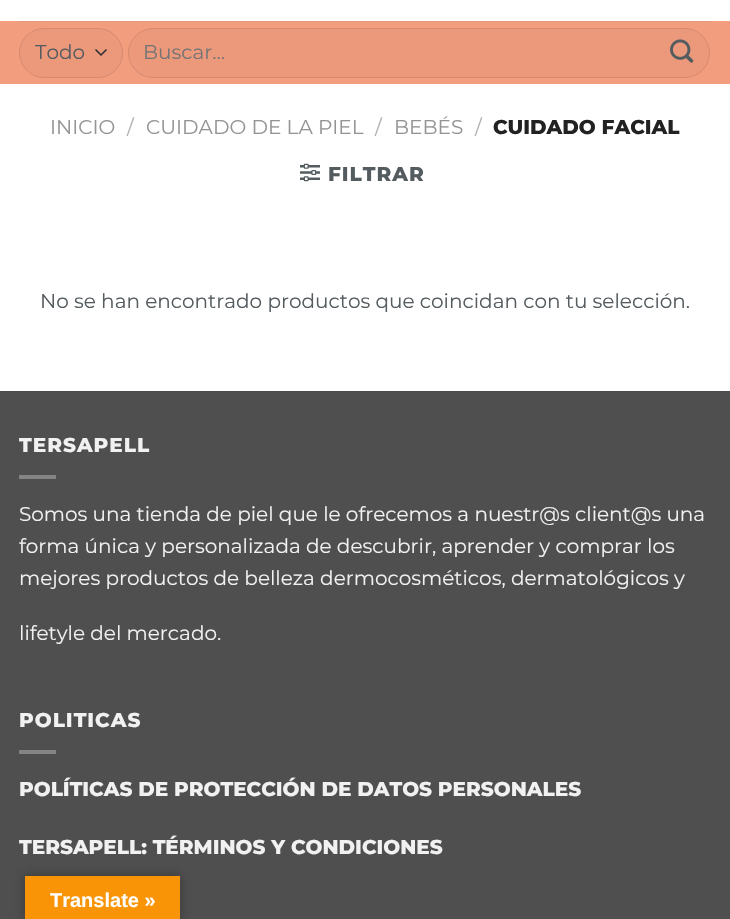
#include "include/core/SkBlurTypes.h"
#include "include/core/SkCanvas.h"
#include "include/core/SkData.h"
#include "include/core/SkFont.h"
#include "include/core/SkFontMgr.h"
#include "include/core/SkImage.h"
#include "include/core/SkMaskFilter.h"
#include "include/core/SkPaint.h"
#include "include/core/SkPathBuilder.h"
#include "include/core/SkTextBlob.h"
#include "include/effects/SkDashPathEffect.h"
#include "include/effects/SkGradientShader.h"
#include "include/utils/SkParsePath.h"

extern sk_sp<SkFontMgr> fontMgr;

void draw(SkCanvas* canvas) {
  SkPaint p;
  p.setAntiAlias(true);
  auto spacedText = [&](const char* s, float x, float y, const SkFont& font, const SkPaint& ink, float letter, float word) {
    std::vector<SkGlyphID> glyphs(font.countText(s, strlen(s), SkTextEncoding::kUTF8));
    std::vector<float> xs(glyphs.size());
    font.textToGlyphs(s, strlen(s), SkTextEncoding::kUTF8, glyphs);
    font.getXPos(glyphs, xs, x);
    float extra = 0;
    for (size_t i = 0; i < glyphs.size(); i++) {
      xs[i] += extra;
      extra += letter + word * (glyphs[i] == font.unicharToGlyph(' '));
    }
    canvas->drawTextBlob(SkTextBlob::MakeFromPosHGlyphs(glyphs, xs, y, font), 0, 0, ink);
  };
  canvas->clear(SK_ColorWHITE);
  p.setColor(SkColorSetRGB(243, 157, 127));
  canvas->drawRect(SkRect::MakeLTRB(0, 21, 730, 84), p);
  p.setColor(SkColorSetRGB(227, 151, 124));
  canvas->drawRect(SkRect::MakeLTRB(19, 21, 711, 22), p);
  p.setColor(SkColorSetRGB(236, 152, 123));
  canvas->drawRoundRect(SkRect::MakeLTRB(19, 28, 123, 78), 25, 25, p);
  p.setStyle(SkPaint::kStroke_Style);
  p.setStrokeWidth(1.7f);
  p.setStrokeCap(SkPaint::kRound_Cap);
  p.setStrokeJoin(SkPaint::kRound_Join);
  p.setColor(SkColorSetRGB(51, 51, 51));
  canvas->drawPath(SkPathBuilder().moveTo(96, 50).lineTo(101, 55).lineTo(106, 50).detach(), p);
  p.setStrokeWidth(1);
  p.setStrokeCap(SkPaint::kButt_Cap);
  p.setStrokeJoin(SkPaint::kMiter_Join);
  p.setColor(SkColorSetARGB(23, 0, 0, 0));
  canvas->drawRoundRect(SkRect::MakeLTRB(19.5f, 28.5f, 122.5f, 77.5f), 24.5f, 24.5f, p);
  p.setStyle(SkPaint::kFill_Style);
  p.setColor(SkColorSetRGB(236, 152, 123));
  canvas->drawRoundRect(SkRect::MakeLTRB(128, 28, 710, 78), 25, 25, p);
  p.setStyle(SkPaint::kStroke_Style);
  p.setColor(SkColorSetARGB(23, 0, 0, 0));
  canvas->drawRoundRect(SkRect::MakeLTRB(128.5f, 28.5f, 709.5f, 77.5f), 24.5f, 24.5f, p);
  canvas->drawImageRect(SkImages::DeferredFromEncodedData(SkData::MakeFromFileName("images/1.png")), SkRect::MakeLTRB(670, 39, 694, 63), SkSamplingOptions());
  canvas->drawImageRect(SkImages::DeferredFromEncodedData(SkData::MakeFromFileName("images/2.png")), SkRect::MakeLTRB(300, 163, 320, 182), SkSamplingOptions());
  p.setStyle(SkPaint::kFill_Style);
  p.setColor(SkColorSetRGB(79, 79, 79));
  canvas->drawRect(SkRect::MakeLTRB(0, 392, 730, 919), p);
  p.setColor(SkColorSetRGB(75, 75, 75));
  canvas->drawRect(SkRect::MakeLTRB(0, 391, 730, 392), p);
  p.setColor(SkColorSetRGB(132, 132, 132));
  canvas->drawRect(SkRect::MakeLTRB(19, 475, 56, 479), p);
  canvas->drawRect(SkRect::MakeLTRB(19, 750, 56, 754), p);
  p.setColor(SkColorSetARGB(77, 0, 0, 0));
  p.setMaskFilter(SkMaskFilter::MakeBlur(kNormal_SkBlurStyle, 5.5f));
  canvas->drawRect(SkRect::MakeLTRB(25, 876, 180, 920), p);
  p.setMaskFilter(nullptr);
  p.setColor(SkColorSetRGB(248, 148, 6));
  canvas->drawRect(SkRect::MakeLTRB(25, 876, 180, 919), p);
  SkFont font1(fontMgr->matchFamilyStyle("Montserrat", SkFontStyle::Normal()), 20);
  font1.setSubpixel(true);
  p.setColor(SkColorSetRGB(84, 92, 96));
  canvas->drawString("Todo", 35, 59, font1, p);
  p.setColor(SkColorSetRGB(117, 117, 117));
  canvas->drawString("Buscar…", 143, 59, font1, p);
  p.setColor(SkColorSetRGB(148, 148, 148));
  canvas->drawString("INICIO", 50, 134, font1, p);
  p.setColor(SkColorSetRGB(178, 178, 178));
  canvas->drawString("/", 127, 134, font1, p);
  p.setColor(SkColorSetRGB(148, 148, 148));
  canvas->drawString("CUIDADO DE LA PIEL", 146, 134, font1, p);
  p.setColor(SkColorSetRGB(178, 178, 178));
  canvas->drawString("/", 375, 134, font1, p);
  p.setColor(SkColorSetRGB(148, 148, 148));
  canvas->drawString("BEBÉS", 394, 134, font1, p);
  p.setColor(SkColorSetRGB(178, 178, 178));
  canvas->drawString("/", 475, 134, font1, p);
  SkFont font2(fontMgr->matchFamilyStyle("Montserrat", SkFontStyle(800, SkFontStyle::kNormal_Width, SkFontStyle::kUpright_Slant)), 20);
  font2.setSubpixel(true);
  p.setColor(SkColorSetRGB(34, 34, 34));
  canvas->drawString("CUIDADO FACIAL", 493, 134, font2, p);
  p.setColor(SkColorSetRGB(84, 92, 96));
  spacedText("FILTRAR", 328, 181, font2, p, 1, 0);
  canvas->drawString("No se han encontrado productos que coincidan con tu selección.", 40, 308, font1, p);
  p.setColor(SkColorSetRGB(241, 241, 241));
  spacedText("TERSAPELL", 19, 452, font2, p, 1, 0);
  canvas->drawString("Somos una tienda de piel que le ofrecemos a nuestr@s client@s una", 19, 521, font1, p);
  canvas->drawString("forma única y personalizada de descubrir, aprender y comprar los", 19, 553, font1, p);
  canvas->drawString("mejores productos de belleza dermocosméticos, dermatológicos y", 19, 585, font1, p);
  canvas->drawString("lifetyle del mercado.", 19, 640, font1, p);
  spacedText("POLITICAS", 19, 727, font2, p, 1, 0);
  canvas->drawString("POLÍTICAS DE PROTECCIÓN DE DATOS PERSONALES", 19, 796, font2, p);
  canvas->drawString("TERSAPELL: TÉRMINOS Y CONDICIONES", 19, 854, font2, p);
  SkFont font3(fontMgr->matchFamilyStyle("Liberation Sans", SkFontStyle::Bold()), 20);
  font3.setSubpixel(true);
  p.setColor(SK_ColorWHITE);
  canvas->drawString("Translate »", 50, 907, font3, p);
}
